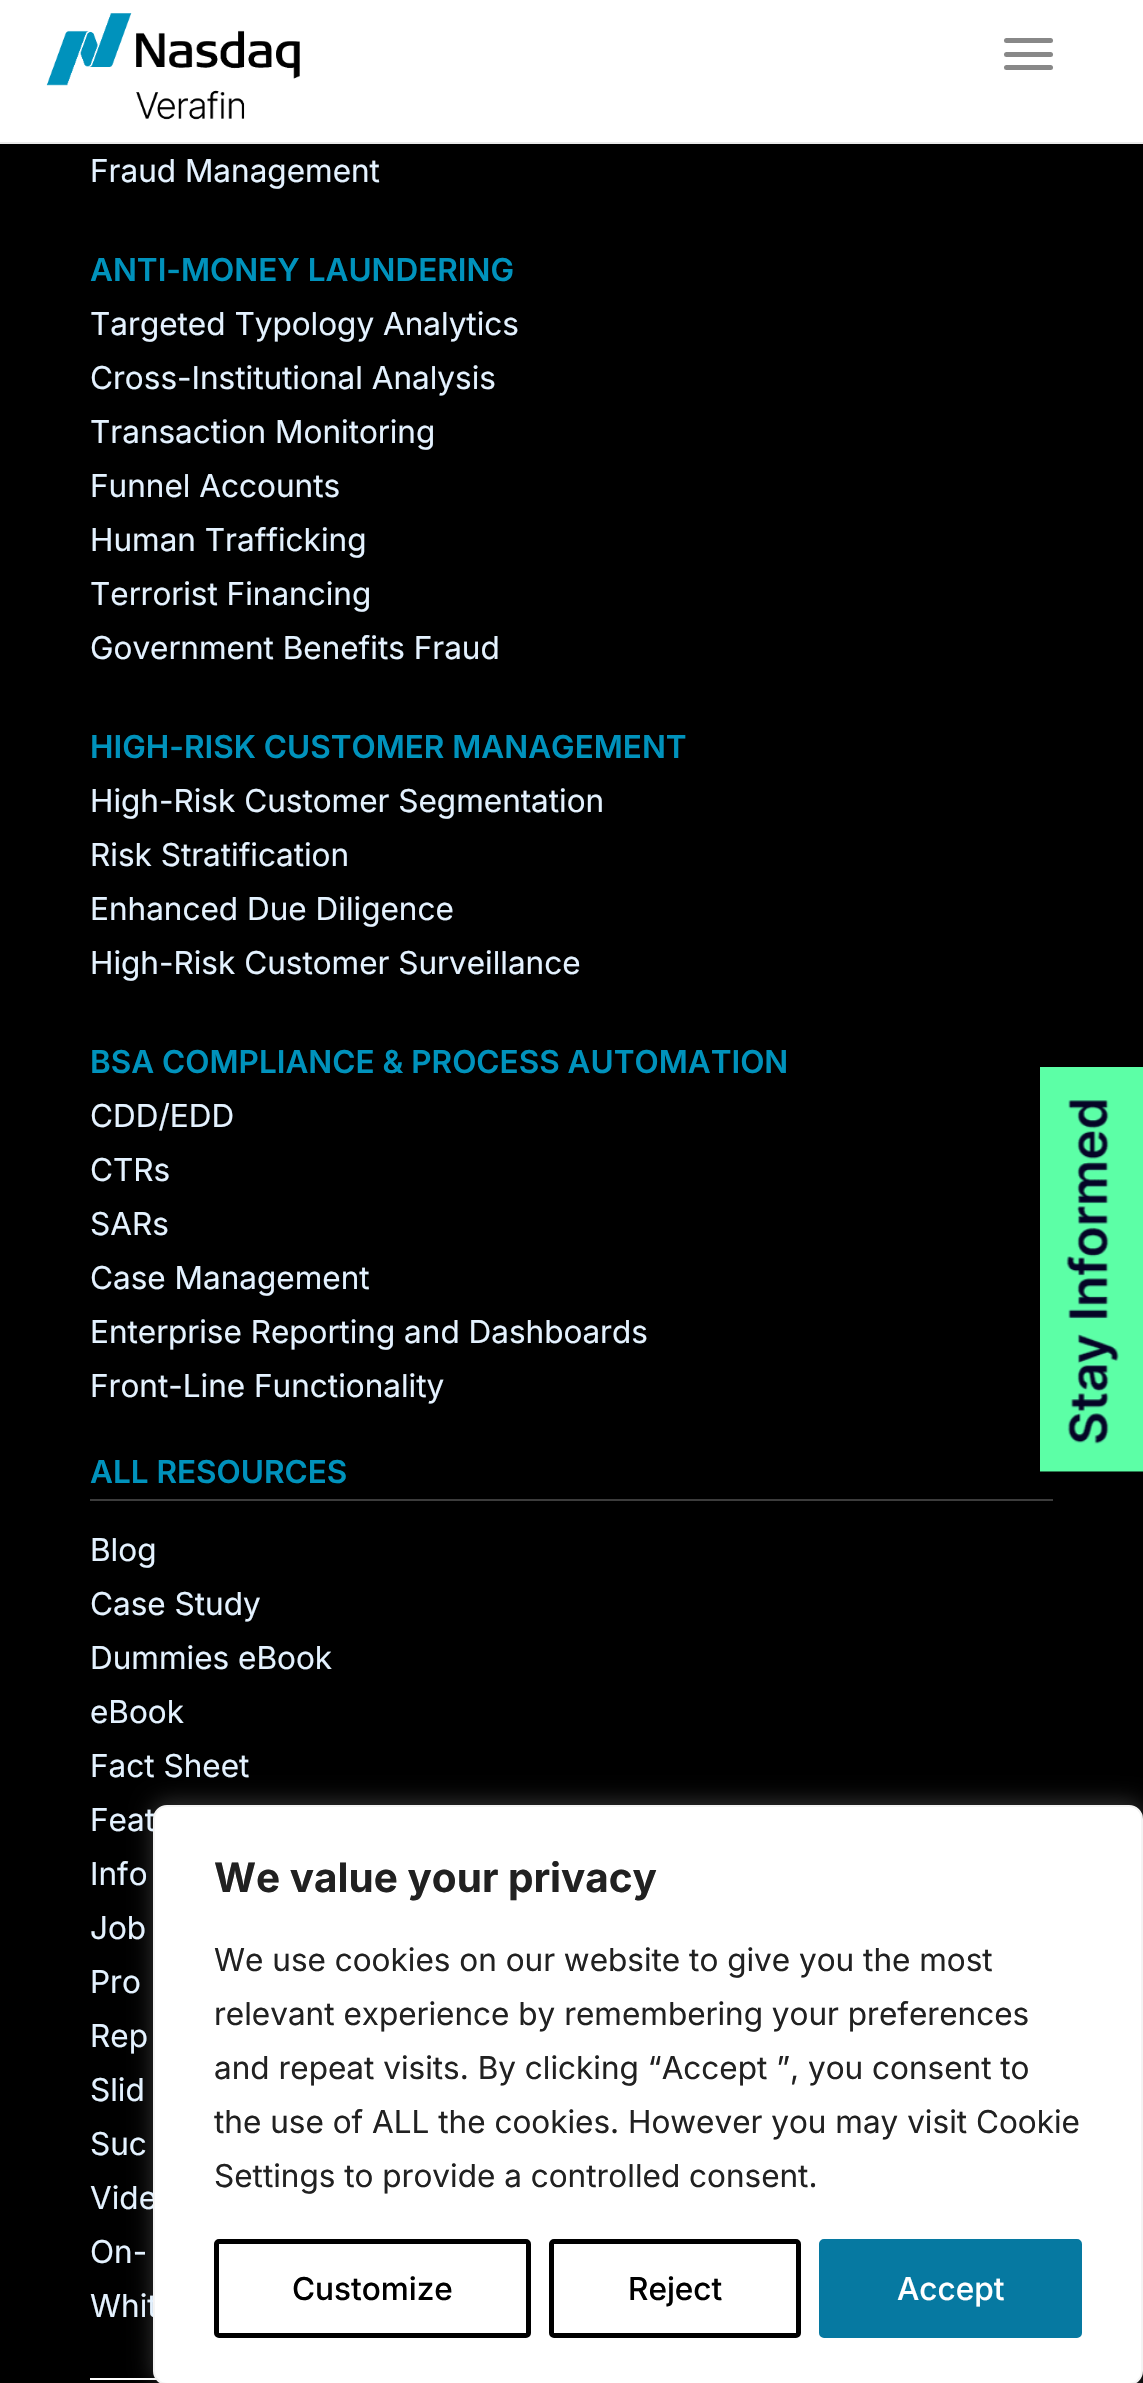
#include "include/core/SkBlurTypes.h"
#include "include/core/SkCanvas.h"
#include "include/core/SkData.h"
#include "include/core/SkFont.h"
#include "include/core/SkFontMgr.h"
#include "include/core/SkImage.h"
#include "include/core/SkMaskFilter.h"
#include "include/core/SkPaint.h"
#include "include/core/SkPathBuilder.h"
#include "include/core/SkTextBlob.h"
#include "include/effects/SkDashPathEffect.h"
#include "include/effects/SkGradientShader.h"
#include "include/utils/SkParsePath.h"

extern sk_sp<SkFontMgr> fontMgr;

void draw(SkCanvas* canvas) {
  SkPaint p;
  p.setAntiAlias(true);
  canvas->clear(SK_ColorBLACK);
  p.setColor(SK_ColorWHITE);
  canvas->drawRect(SkRect::MakeLTRB(0, 0, 1143, 142), p);
  p.setColor(SkColorSetRGB(235, 235, 235));
  canvas->drawRect(SkRect::MakeLTRB(0, 142, 1143, 144), p);
  canvas->drawImageRect(SkImages::DeferredFromEncodedData(SkData::MakeFromFileName("images/1.png")), SkRect::MakeLTRB(46, 13, 300, 120), SkSamplingOptions());
  p.setColor(SkColorSetRGB(136, 136, 136));
  canvas->drawRoundRect(SkRect::MakeLTRB(1004, 38, 1053, 43), 2.5f, 2.5f, p);
  canvas->drawRoundRect(SkRect::MakeLTRB(1004, 52, 1053, 57), 2.5f, 2.5f, p);
  canvas->drawRoundRect(SkRect::MakeLTRB(1004, 65, 1053, 70), 2.5f, 2.5f, p);
  p.setColor(SkColorSetRGB(60, 60, 60));
  canvas->drawRect(SkRect::MakeLTRB(90, 1499, 1053, 1501), p);
  p.setColor(SK_ColorWHITE);
  canvas->drawRect(SkRect::MakeLTRB(90, 2378, 157, 2380), p);
  canvas->drawImageRect(SkImages::DeferredFromEncodedData(SkData::MakeFromFileName("images/2.png")), SkRect::MakeLTRB(1040, 1067, 1143, 1472), SkSamplingOptions());
  p.setColor(SkColorSetARGB(77, 172, 171, 171));
  p.setMaskFilter(SkMaskFilter::MakeBlur(kNormal_SkBlurStyle, 11));
  canvas->drawRoundRect(SkRect::MakeLTRB(153, 1802, 1143, 2383), 14, 14, p);
  p.setMaskFilter(nullptr);
  SkFont font1(fontMgr->matchFamilyStyle("Inter", SkFontStyle::Normal()), 31.5f);
  font1.setSubpixel(true);
  p.setColor(SkColorSetRGB(228, 242, 255));
  canvas->drawString("Fraud Management", 90, 182, font1, p);
  SkFont font2(fontMgr->matchFamilyStyle("Inter", SkFontStyle(600, SkFontStyle::kNormal_Width, SkFontStyle::kUpright_Slant)), 31.5f);
  font2.setSubpixel(true);
  p.setColor(SkColorSetRGB(0, 146, 188));
  canvas->drawString("ANTI-MONEY LAUNDERING", 90, 281, font2, p);
  p.setColor(SkColorSetRGB(228, 242, 255));
  canvas->drawString("Targeted Typology Analytics", 90, 335, font1, p);
  canvas->drawString("Cross-Institutional Analysis", 90, 389, font1, p);
  canvas->drawString("Transaction Monitoring", 90, 443, font1, p);
  canvas->drawString("Funnel Accounts", 90, 497, font1, p);
  canvas->drawString("Human Trafficking", 90, 551, font1, p);
  canvas->drawString("Terrorist Financing", 90, 605, font1, p);
  canvas->drawString("Government Benefits Fraud", 90, 659, font1, p);
  p.setColor(SkColorSetRGB(0, 146, 188));
  canvas->drawString("HIGH-RISK CUSTOMER MANAGEMENT", 90, 758, font2, p);
  p.setColor(SkColorSetRGB(228, 242, 255));
  canvas->drawString("High-Risk Customer Segmentation", 90, 812, font1, p);
  canvas->drawString("Risk Stratification", 90, 866, font1, p);
  canvas->drawString("Enhanced Due Diligence", 90, 920, font1, p);
  canvas->drawString("High-Risk Customer Surveillance", 90, 974, font1, p);
  p.setColor(SkColorSetRGB(0, 146, 188));
  canvas->drawString("BSA COMPLIANCE & PROCESS AUTOMATION", 90, 1073, font2, p);
  p.setColor(SkColorSetRGB(228, 242, 255));
  canvas->drawString("CDD/EDD", 90, 1127, font1, p);
  canvas->drawString("CTRs", 90, 1181, font1, p);
  canvas->drawString("SARs", 90, 1235, font1, p);
  canvas->drawString("Case Management", 90, 1289, font1, p);
  canvas->drawString("Enterprise Reporting and Dashboards", 90, 1343, font1, p);
  canvas->drawString("Front-Line Functionality", 90, 1397, font1, p);
  p.setColor(SkColorSetRGB(0, 146, 188));
  canvas->drawString("ALL RESOURCES", 90, 1483, font2, p);
  p.setColor(SkColorSetRGB(228, 242, 255));
  canvas->drawString("Blog", 90, 1561, font1, p);
  canvas->drawString("Case Study", 90, 1615, font1, p);
  canvas->drawString("Dummies eBook", 90, 1669, font1, p);
  canvas->drawString("eBook", 90, 1723, font1, p);
  canvas->drawString("Fact Sheet", 90, 1777, font1, p);
  canvas->drawString("Feat", 90, 1831, font1, p);
  canvas->drawString("Info", 90, 1885, font1, p);
  canvas->drawString("Job", 90, 1939, font1, p);
  canvas->drawString("Pro", 90, 1993, font1, p);
  canvas->drawString("Rep", 90, 2047, font1, p);
  canvas->drawString("Slid", 90, 2101, font1, p);
  canvas->drawString("Suc", 90, 2155, font1, p);
  canvas->drawString("Vide", 90, 2209, font1, p);
  canvas->drawString("On-", 90, 2263, font1, p);
  canvas->drawString("Whit", 90, 2317, font1, p);
  p.setColor(SK_ColorWHITE);
  canvas->drawRoundRect(SkRect::MakeLTRB(154, 1806, 1142, 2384), 13, 13, p);
  p.setStyle(SkPaint::kStroke_Style);
  p.setStrokeWidth(2);
  p.setColor(SkColorSetRGB(244, 244, 244));
  canvas->drawRoundRect(SkRect::MakeLTRB(154, 1806, 1142, 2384), 13, 13, p);
  SkFont font3(fontMgr->matchFamilyStyle("Inter", SkFontStyle::Bold()), 40.5f);
  font3.setSubpixel(true);
  p.setStyle(SkPaint::kFill_Style);
  p.setColor(SkColorSetRGB(33, 33, 33));
  canvas->drawString("We value your privacy", 214, 1892, font3, p);
  canvas->drawString("We use cookies on our website to give you the most", 214, 1971, font1, p);
  canvas->drawString("relevant experience by remembering your preferences", 214, 2025, font1, p);
  canvas->drawString("and repeat visits. By clicking “Accept ”, you consent to", 214, 2079, font1, p);
  canvas->drawString("the use of ALL the cookies. However you may visit Cookie", 214, 2133, font1, p);
  canvas->drawString("Settings to provide a controlled consent.", 214, 2187, font1, p);
  p.setStyle(SkPaint::kStroke_Style);
  p.setStrokeWidth(5);
  p.setColor(SK_ColorBLACK);
  canvas->drawRoundRect(SkRect::MakeLTRB(216.5f, 2241.5f, 528.5f, 2335.5f), 2.5f, 2.5f, p);
  SkFont font4(fontMgr->matchFamilyStyle("Inter", SkFontStyle(500, SkFontStyle::kNormal_Width, SkFontStyle::kUpright_Slant)), 31.5f);
  font4.setSubpixel(true);
  p.setStyle(SkPaint::kFill_Style);
  canvas->drawString("Customize", 292, 2300, font4, p);
  p.setStyle(SkPaint::kStroke_Style);
  canvas->drawRoundRect(SkRect::MakeLTRB(551.5f, 2241.5f, 798.5f, 2335.5f), 2.5f, 2.5f, p);
  p.setStyle(SkPaint::kFill_Style);
  canvas->drawString("Reject", 628, 2300, font4, p);
  p.setColor(SkColorSetRGB(6, 121, 161));
  canvas->drawRoundRect(SkRect::MakeLTRB(821.5f, 2241.5f, 1079.5f, 2335.5f), 2.5f, 2.5f, p);
  p.setStyle(SkPaint::kStroke_Style);
  canvas->drawRoundRect(SkRect::MakeLTRB(821.5f, 2241.5f, 1079.5f, 2335.5f), 2.5f, 2.5f, p);
  p.setStyle(SkPaint::kFill_Style);
  p.setColor(SK_ColorWHITE);
  canvas->drawString("Accept", 897, 2300, font4, p);
}
